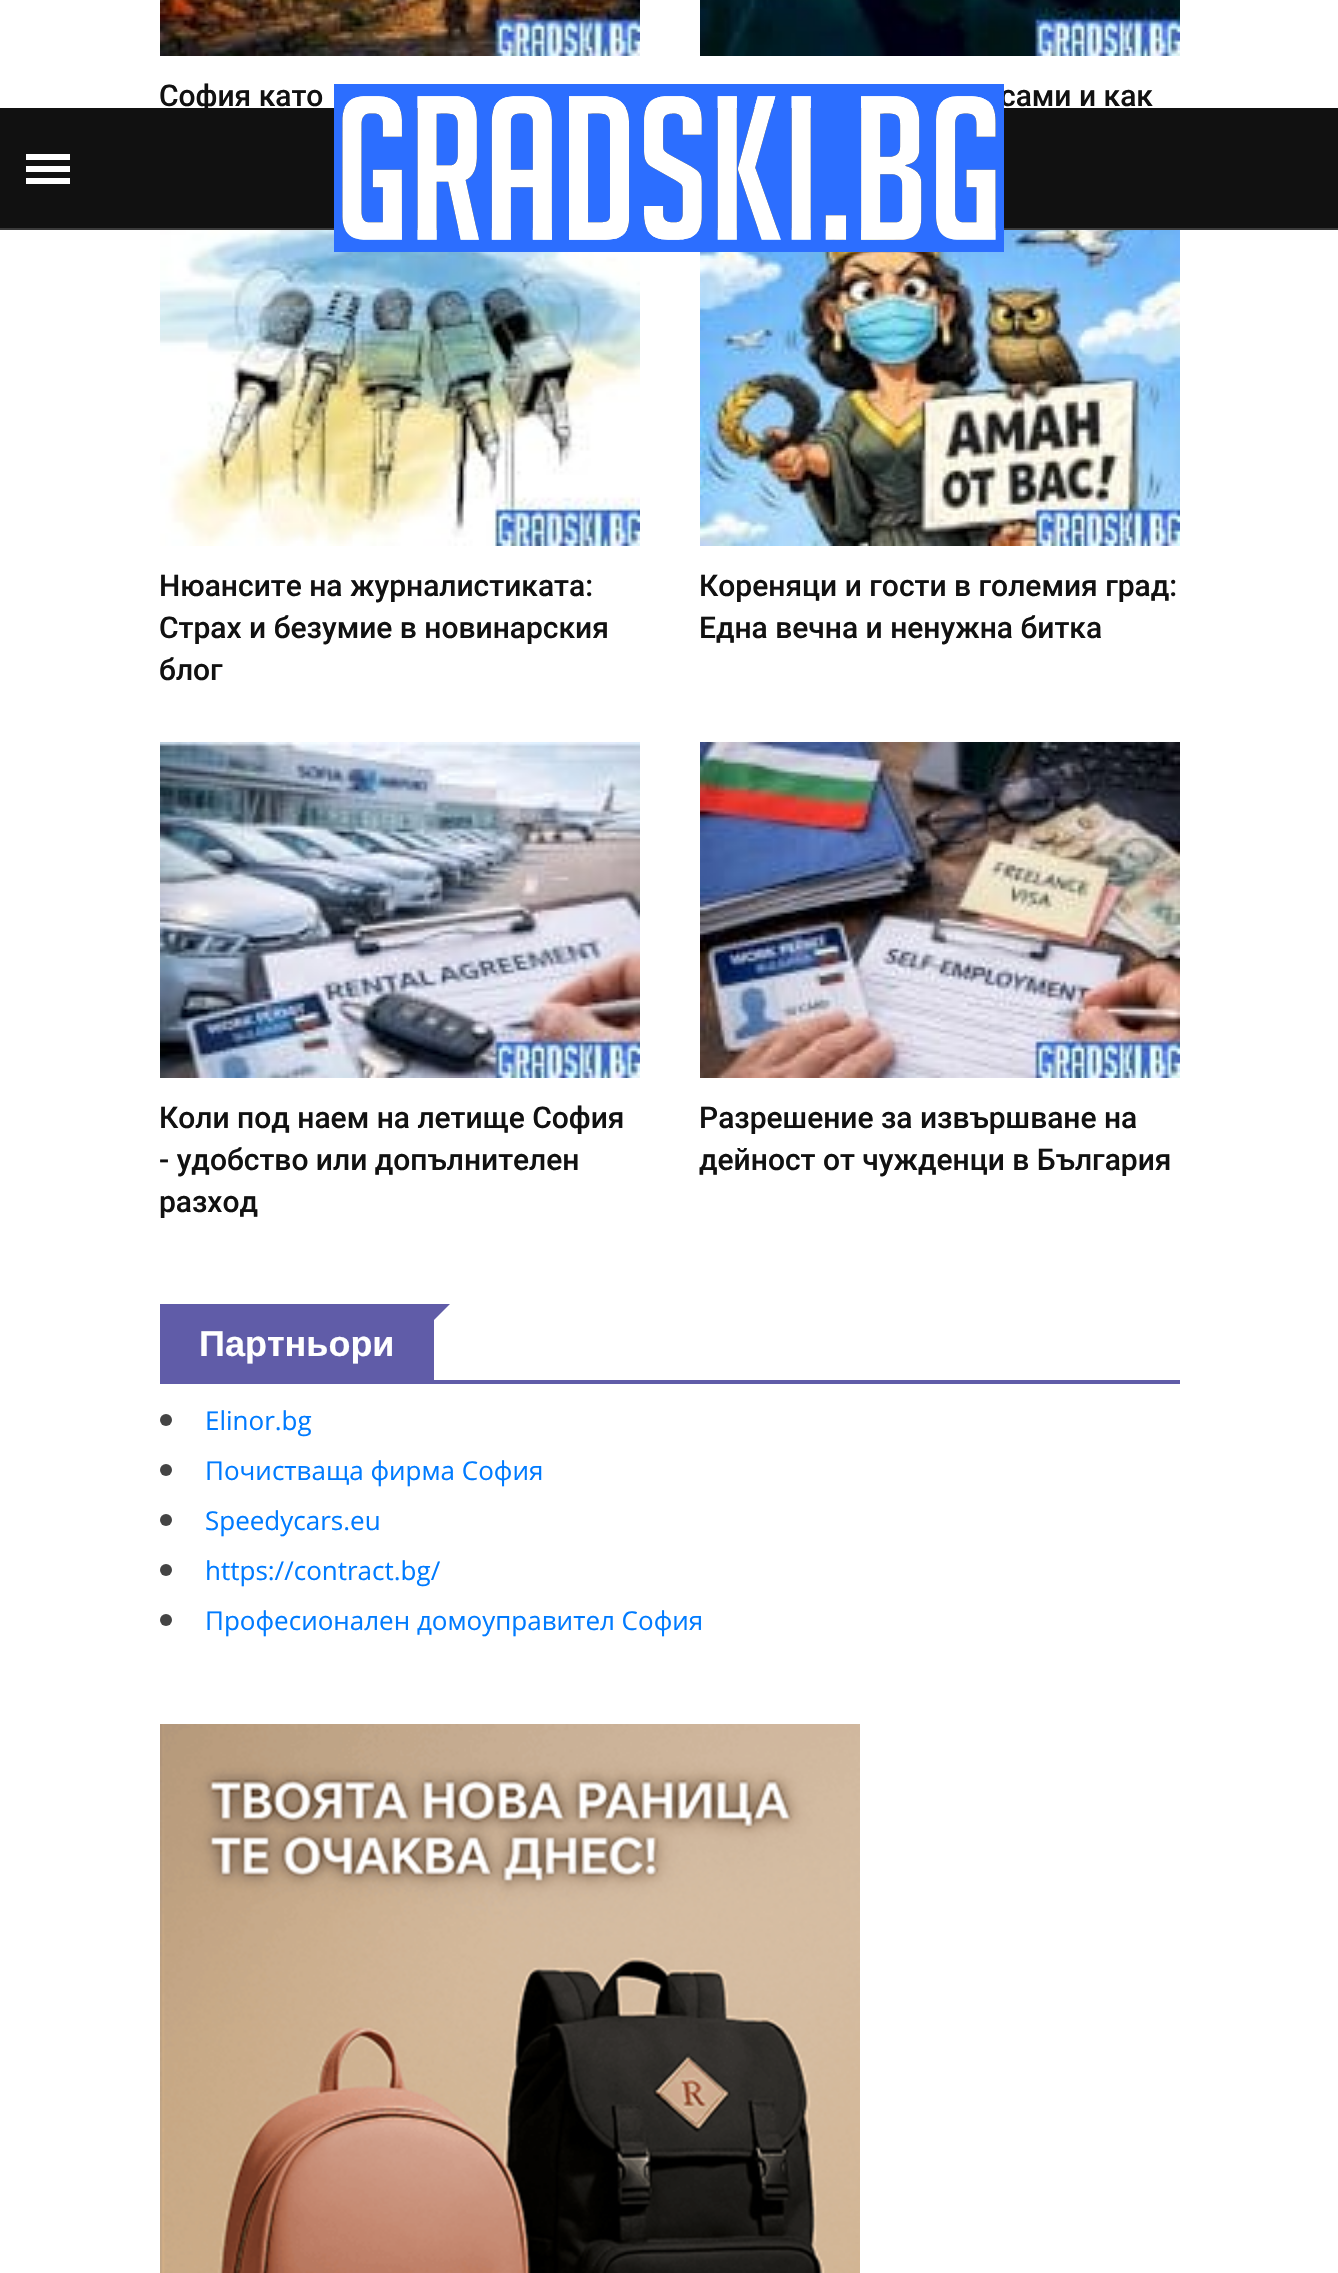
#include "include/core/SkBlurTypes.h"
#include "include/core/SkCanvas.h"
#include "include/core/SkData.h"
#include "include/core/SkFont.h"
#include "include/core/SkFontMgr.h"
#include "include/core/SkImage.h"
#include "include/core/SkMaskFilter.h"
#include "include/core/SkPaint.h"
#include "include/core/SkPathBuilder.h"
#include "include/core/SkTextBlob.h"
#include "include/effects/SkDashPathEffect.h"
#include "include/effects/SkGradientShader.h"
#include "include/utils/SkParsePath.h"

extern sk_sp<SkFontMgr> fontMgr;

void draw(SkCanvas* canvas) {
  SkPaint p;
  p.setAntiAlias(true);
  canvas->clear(SK_ColorWHITE);
  canvas->drawImageRect(SkImages::DeferredFromEncodedData(SkData::MakeFromFileName("images/1.png")), SkRect::MakeLTRB(160, 0, 640, 56), SkSamplingOptions());
  canvas->drawImageRect(SkImages::DeferredFromEncodedData(SkData::MakeFromFileName("images/2.png")), SkRect::MakeLTRB(700, 0, 1180, 56), SkSamplingOptions());
  canvas->drawImageRect(SkImages::DeferredFromEncodedData(SkData::MakeFromFileName("images/3.png")), SkRect::MakeLTRB(160, 230, 640, 546), SkSamplingOptions());
  canvas->drawImageRect(SkImages::DeferredFromEncodedData(SkData::MakeFromFileName("images/4.png")), SkRect::MakeLTRB(700, 230, 1180, 546), SkSamplingOptions());
  canvas->drawImageRect(SkImages::DeferredFromEncodedData(SkData::MakeFromFileName("images/5.png")), SkRect::MakeLTRB(160, 742, 640, 1078), SkSamplingOptions());
  canvas->drawImageRect(SkImages::DeferredFromEncodedData(SkData::MakeFromFileName("images/6.png")), SkRect::MakeLTRB(700, 742, 1180, 1078), SkSamplingOptions());
  p.setColor(SkColorSetRGB(96, 92, 168));
  canvas->drawRect(SkRect::MakeLTRB(160, 1304, 434, 1380), p);
  canvas->drawPath(SkPathBuilder().moveTo(434, 1304).lineTo(450, 1304).lineTo(434, 1320).close().detach(), p);
  canvas->drawRect(SkRect::MakeLTRB(160, 1380, 1180, 1384), p);
  p.setColor(SkColorSetRGB(68, 68, 68));
  canvas->drawCircle(166, 1420, 6, p);
  canvas->drawCircle(166, 1470, 6, p);
  canvas->drawCircle(166, 1520, 6, p);
  canvas->drawCircle(166, 1570, 6, p);
  canvas->drawCircle(166, 1620, 6, p);
  canvas->drawImageRect(SkImages::DeferredFromEncodedData(SkData::MakeFromFileName("images/7.png")), SkRect::MakeLTRB(160, 1724, 860, 2273), SkSamplingOptions());
  p.setColor(SkColorSetRGB(58, 58, 58));
  canvas->drawRect(SkRect::MakeLTRB(0, 228, 1338, 230), p);
  p.setColor(SkColorSetRGB(17, 17, 17));
  canvas->drawRect(SkRect::MakeLTRB(0, 108, 1338, 228), p);
  p.setColor(SK_ColorWHITE);
  canvas->drawRect(SkRect::MakeLTRB(26, 154, 70, 160), p);
  canvas->drawRect(SkRect::MakeLTRB(26, 166, 70, 172), p);
  canvas->drawRect(SkRect::MakeLTRB(26, 178, 70, 184), p);
  SkFont font1(fontMgr->matchFamilyStyle("Roboto", SkFontStyle(500, SkFontStyle::kNormal_Width, SkFontStyle::kUpright_Slant)), 30);
  font1.setSubpixel(true);
  p.setColor(SkColorSetRGB(17, 17, 17));
  canvas->drawString("София като", 159, 106, font1, p);
  canvas->drawString("сами и как", 1000, 106, font1, p);
  canvas->drawString("Нюансите на журналистиката:", 159, 596, font1, p);
  canvas->drawString("Страх и безумие в новинарския", 159, 638, font1, p);
  canvas->drawString("блог", 159, 680, font1, p);
  canvas->drawString("Кореняци и гости в големия град:", 699, 596, font1, p);
  canvas->drawString("Една вечна и ненужна битка", 699, 638, font1, p);
  canvas->drawString("Коли под наем на летище София", 159, 1128, font1, p);
  canvas->drawString("- удобство или допълнителен", 159, 1170, font1, p);
  canvas->drawString("разход", 159, 1212, font1, p);
  canvas->drawString("Разрешение за извършване на", 699, 1128, font1, p);
  canvas->drawString("дейност от чужденци в България", 699, 1170, font1, p);
  SkFont font2(fontMgr->matchFamilyStyle("Liberation Sans", SkFontStyle::Bold()), 36);
  font2.setSubpixel(true);
  p.setColor(SK_ColorWHITE);
  canvas->drawString("Партньори", 199, 1356, font2, p);
  SkFont font3(fontMgr->matchFamilyStyle("Open Sans", SkFontStyle::Normal()), 26);
  font3.setSubpixel(true);
  p.setColor(SkColorSetRGB(0, 123, 255));
  canvas->drawString("Elinor.bg", 205, 1430, font3, p);
  canvas->drawString("Почистваща фирма София", 205, 1480, font3, p);
  canvas->drawString("Speedycars.eu", 205, 1530, font3, p);
  canvas->drawString("https://contract.bg/", 205, 1580, font3, p);
  canvas->drawString("Професионален домоуправител София", 205, 1630, font3, p);
  canvas->drawImageRect(SkImages::DeferredFromEncodedData(SkData::MakeFromFileName("images/8.png")), SkRect::MakeLTRB(334, 84, 1004, 252), SkSamplingOptions());
}
